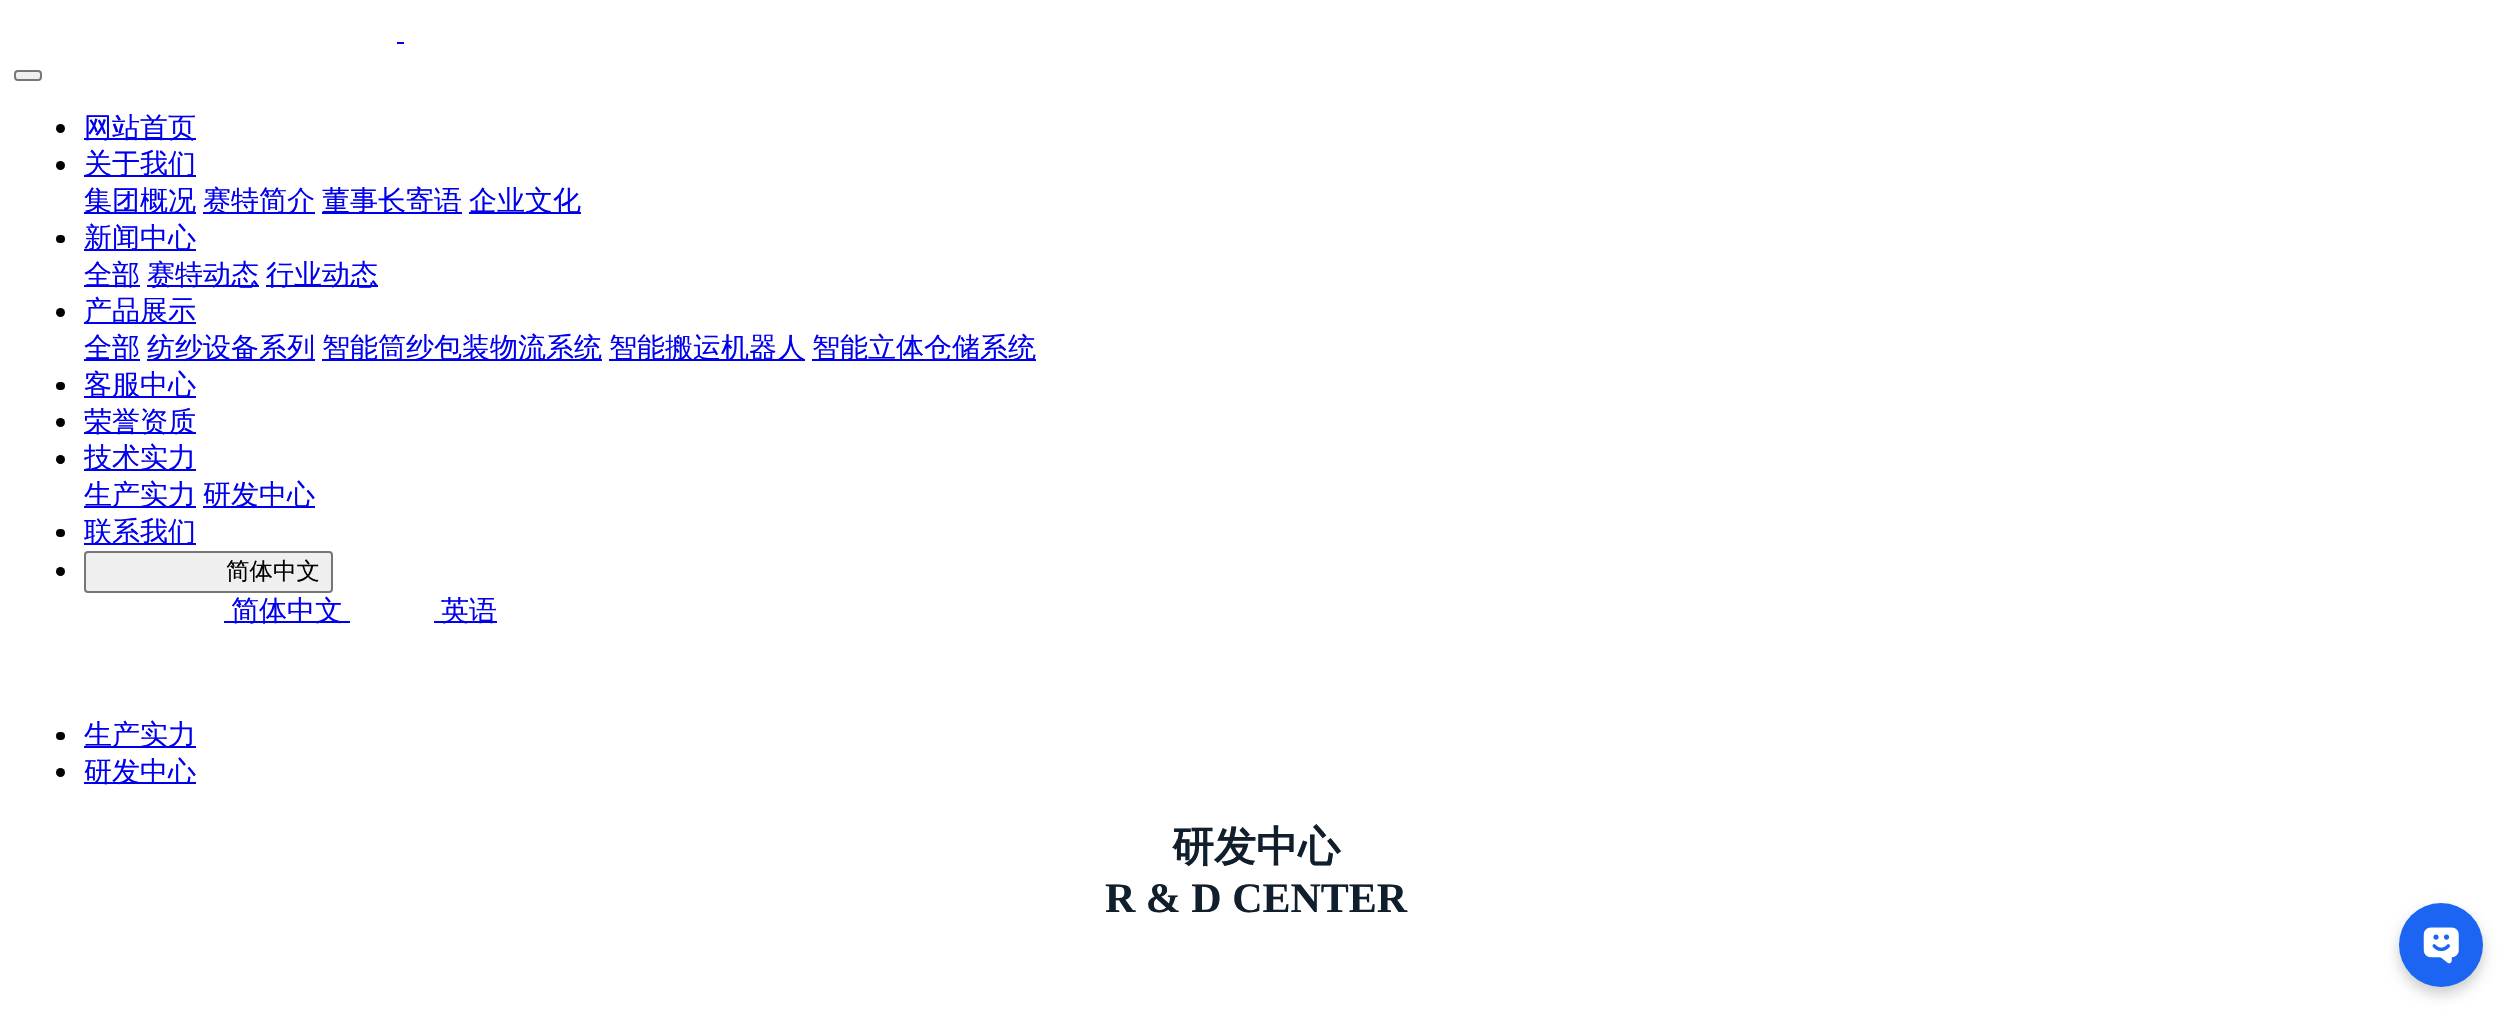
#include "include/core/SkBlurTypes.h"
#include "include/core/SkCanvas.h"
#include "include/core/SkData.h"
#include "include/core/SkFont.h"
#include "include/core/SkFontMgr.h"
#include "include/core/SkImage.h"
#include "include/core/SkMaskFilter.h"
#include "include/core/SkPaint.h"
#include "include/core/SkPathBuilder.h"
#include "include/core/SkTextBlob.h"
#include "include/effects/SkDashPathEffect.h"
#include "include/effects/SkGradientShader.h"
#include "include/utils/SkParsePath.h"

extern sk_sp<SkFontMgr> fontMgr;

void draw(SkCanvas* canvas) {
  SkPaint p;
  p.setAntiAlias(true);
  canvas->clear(SK_ColorWHITE);
  p.setColor(SkColorSetRGB(0, 0, 238));
  canvas->drawRect(SkRect::MakeLTRB(397, 42, 404, 44), p);
  p.setColor(SkColorSetRGB(239, 239, 239));
  canvas->drawRoundRect(SkRect::MakeLTRB(15, 71, 41, 80), 3, 3, p);
  p.setStyle(SkPaint::kStroke_Style);
  p.setStrokeWidth(2);
  p.setColor(SkColorSetRGB(118, 118, 118));
  canvas->drawRoundRect(SkRect::MakeLTRB(15, 71, 41, 80), 3, 3, p);
  p.setStyle(SkPaint::kFill_Style);
  p.setColor(SK_ColorBLACK);
  canvas->drawCircle(60.5f, 128.5f, 4.5f, p);
  p.setColor(SkColorSetRGB(0, 0, 238));
  canvas->drawRect(SkRect::MakeLTRB(84, 138, 196, 140), p);
  p.setColor(SK_ColorBLACK);
  canvas->drawCircle(60.5f, 165.5f, 4.5f, p);
  p.setColor(SkColorSetRGB(0, 0, 238));
  canvas->drawRect(SkRect::MakeLTRB(84, 175, 196, 177), p);
  canvas->drawRect(SkRect::MakeLTRB(84, 212, 196, 214), p);
  canvas->drawRect(SkRect::MakeLTRB(203, 212, 315, 214), p);
  canvas->drawRect(SkRect::MakeLTRB(322, 212, 462, 214), p);
  canvas->drawRect(SkRect::MakeLTRB(469, 212, 581, 214), p);
  p.setColor(SK_ColorBLACK);
  canvas->drawRoundRect(SkRect::MakeLTRB(56, 235, 65, 243), 4, 4, p);
  p.setColor(SkColorSetRGB(0, 0, 238));
  canvas->drawRect(SkRect::MakeLTRB(84, 249, 196, 251), p);
  canvas->drawRect(SkRect::MakeLTRB(84, 285, 140, 287), p);
  canvas->drawRect(SkRect::MakeLTRB(147, 285, 259, 287), p);
  canvas->drawRect(SkRect::MakeLTRB(266, 285, 378, 287), p);
  p.setColor(SK_ColorBLACK);
  canvas->drawCircle(60.5f, 312.5f, 4.5f, p);
  p.setColor(SkColorSetRGB(0, 0, 238));
  canvas->drawRect(SkRect::MakeLTRB(84, 322, 196, 324), p);
  canvas->drawRect(SkRect::MakeLTRB(84, 359, 140, 361), p);
  canvas->drawRect(SkRect::MakeLTRB(147, 359, 315, 361), p);
  canvas->drawRect(SkRect::MakeLTRB(322, 359, 602, 361), p);
  canvas->drawRect(SkRect::MakeLTRB(609, 359, 805, 361), p);
  canvas->drawRect(SkRect::MakeLTRB(812, 359, 1036, 361), p);
  p.setColor(SK_ColorBLACK);
  canvas->drawRoundRect(SkRect::MakeLTRB(56, 382, 65, 390), 4, 4, p);
  p.setColor(SkColorSetRGB(0, 0, 238));
  canvas->drawRect(SkRect::MakeLTRB(84, 396, 196, 398), p);
  p.setColor(SK_ColorBLACK);
  canvas->drawCircle(60.5f, 422.5f, 4.5f, p);
  p.setColor(SkColorSetRGB(0, 0, 238));
  canvas->drawRect(SkRect::MakeLTRB(84, 432, 196, 434), p);
  p.setColor(SK_ColorBLACK);
  canvas->drawCircle(60.5f, 459.5f, 4.5f, p);
  p.setColor(SkColorSetRGB(0, 0, 238));
  canvas->drawRect(SkRect::MakeLTRB(84, 469, 196, 471), p);
  canvas->drawRect(SkRect::MakeLTRB(84, 506, 196, 508), p);
  canvas->drawRect(SkRect::MakeLTRB(203, 506, 315, 508), p);
  p.setColor(SK_ColorBLACK);
  canvas->drawRoundRect(SkRect::MakeLTRB(56, 529, 65, 537), 4, 4, p);
  p.setColor(SkColorSetRGB(0, 0, 238));
  canvas->drawRect(SkRect::MakeLTRB(84, 543, 196, 545), p);
  p.setColor(SK_ColorBLACK);
  canvas->drawCircle(60.5f, 571.5f, 4.5f, p);
  p.setColor(SkColorSetRGB(239, 239, 239));
  canvas->drawRoundRect(SkRect::MakeLTRB(85, 552, 332, 592), 3, 3, p);
  p.setStyle(SkPaint::kStroke_Style);
  p.setColor(SkColorSetRGB(118, 118, 118));
  canvas->drawRoundRect(SkRect::MakeLTRB(85, 552, 332, 592), 3, 3, p);
  p.setStyle(SkPaint::kFill_Style);
  p.setColor(SkColorSetRGB(0, 0, 238));
  canvas->drawRect(SkRect::MakeLTRB(224, 621, 350, 623), p);
  canvas->drawRect(SkRect::MakeLTRB(434, 621, 497, 623), p);
  p.setColor(SK_ColorBLACK);
  canvas->drawRoundRect(SkRect::MakeLTRB(56, 732, 65, 740), 4, 4, p);
  p.setColor(SkColorSetRGB(0, 0, 238));
  canvas->drawRect(SkRect::MakeLTRB(84, 746, 196, 748), p);
  p.setColor(SK_ColorBLACK);
  canvas->drawCircle(60.5f, 772.5f, 4.5f, p);
  p.setColor(SkColorSetRGB(0, 0, 238));
  canvas->drawRect(SkRect::MakeLTRB(84, 782, 196, 784), p);
  p.setColor(SkColorSetARGB(51, 0, 0, 0));
  p.setMaskFilter(SkMaskFilter::MakeBlur(kNormal_SkBlurStyle, 7));
  canvas->drawRoundRect(SkRect::MakeLTRB(2399, 910, 2483, 994), 42, 42, p);
  p.setMaskFilter(nullptr);
  p.setColor(SkColorSetRGB(28, 100, 242));
  canvas->drawCircle(2441, 945, 42, p);
  canvas->drawImageRect(SkImages::DeferredFromEncodedData(SkData::MakeFromFileName("images/1.png")), SkRect::MakeLTRB(2423, 927, 2459, 964), SkSamplingOptions());
  SkFont font1(fontMgr->matchFamilyStyle("WenQuanYi Zen Hei", SkFontStyle(500, SkFontStyle::kNormal_Width, SkFontStyle::kUpright_Slant)), 28);
  font1.setSubpixel(true);
  p.setColor(SkColorSetRGB(0, 0, 238));
  canvas->drawString("网站首页", 84, 137, font1, p);
  canvas->drawString("关于我们", 84, 173, font1, p);
  canvas->drawString("集团概况", 84, 210, font1, p);
  canvas->drawString("赛特简介", 203, 210, font1, p);
  canvas->drawString("董事长寄语", 322, 210, font1, p);
  canvas->drawString("企业文化", 469, 210, font1, p);
  canvas->drawString("新闻中心", 84, 247, font1, p);
  canvas->drawString("全部", 84, 284, font1, p);
  canvas->drawString("赛特动态", 147, 284, font1, p);
  canvas->drawString("行业动态", 266, 284, font1, p);
  canvas->drawString("产品展示", 84, 320, font1, p);
  canvas->drawString("全部", 84, 357, font1, p);
  canvas->drawString("纺纱设备系列", 147, 357, font1, p);
  canvas->drawString("智能筒纱包装物流系统", 322, 357, font1, p);
  canvas->drawString("智能搬运机器人", 609, 357, font1, p);
  canvas->drawString("智能立体仓储系统", 812, 357, font1, p);
  canvas->drawString("客服中心", 84, 394, font1, p);
  canvas->drawString("荣誉资质", 84, 431, font1, p);
  canvas->drawString("技术实力", 84, 467, font1, p);
  canvas->drawString("生产实力", 84, 504, font1, p);
  canvas->drawString("研发中心", 203, 504, font1, p);
  canvas->drawString("联系我们", 84, 541, font1, p);
  SkFont font2(fontMgr->matchFamilyStyle("WenQuanYi Zen Hei", SkFontStyle(500, SkFontStyle::kNormal_Width, SkFontStyle::kUpright_Slant)), 23.5f);
  font2.setSubpixel(true);
  p.setColor(SK_ColorBLACK);
  canvas->drawString("简体中文", 226, 579, font2, p);
  p.setColor(SkColorSetRGB(0, 0, 238));
  canvas->drawString("简体中文", 231, 620, font1, p);
  canvas->drawString("英语", 441, 620, font1, p);
  canvas->drawString("生产实力", 84, 744, font1, p);
  canvas->drawString("研发中心", 84, 781, font1, p);
  SkFont font3(fontMgr->matchFamilyStyle("WenQuanYi Zen Hei", SkFontStyle::Bold()), 42);
  font3.setSubpixel(true);
  p.setColor(SkColorSetRGB(17, 31, 44));
  canvas->drawString("研发中心", 1172, 861, font3, p);
  SkFont font4(fontMgr->matchFamilyStyle("Liberation Serif", SkFontStyle::Bold()), 42);
  font4.setSubpixel(true);
  canvas->drawString("R & D CENTER", 1105, 912, font4, p);
}
